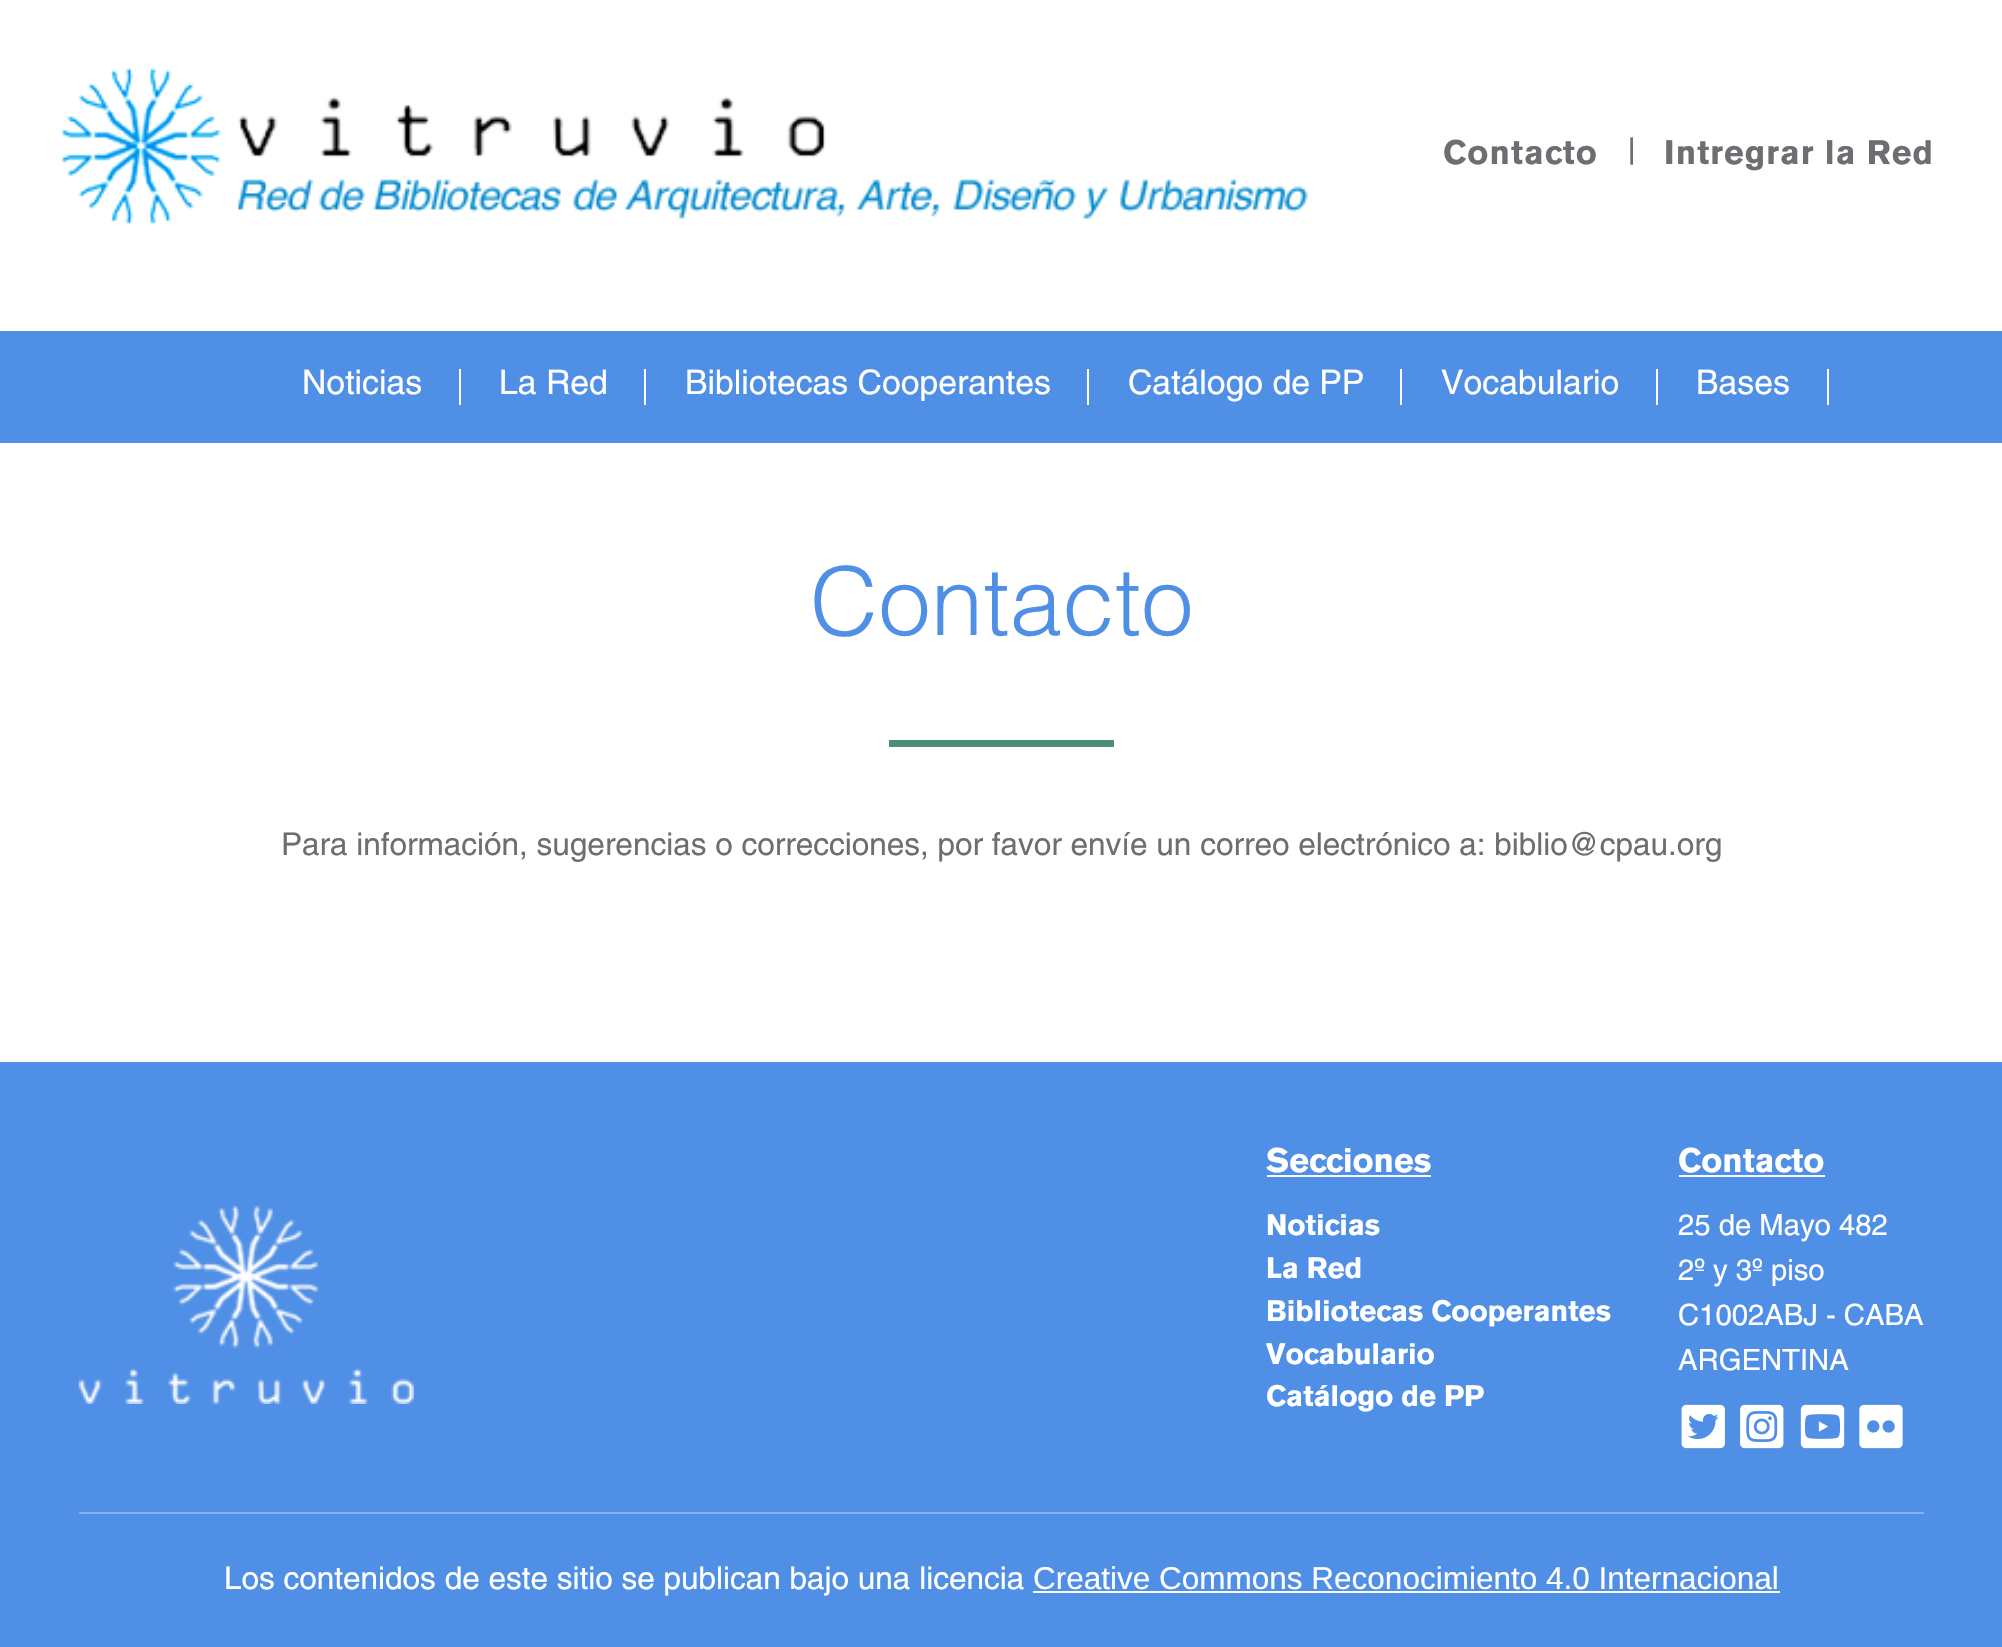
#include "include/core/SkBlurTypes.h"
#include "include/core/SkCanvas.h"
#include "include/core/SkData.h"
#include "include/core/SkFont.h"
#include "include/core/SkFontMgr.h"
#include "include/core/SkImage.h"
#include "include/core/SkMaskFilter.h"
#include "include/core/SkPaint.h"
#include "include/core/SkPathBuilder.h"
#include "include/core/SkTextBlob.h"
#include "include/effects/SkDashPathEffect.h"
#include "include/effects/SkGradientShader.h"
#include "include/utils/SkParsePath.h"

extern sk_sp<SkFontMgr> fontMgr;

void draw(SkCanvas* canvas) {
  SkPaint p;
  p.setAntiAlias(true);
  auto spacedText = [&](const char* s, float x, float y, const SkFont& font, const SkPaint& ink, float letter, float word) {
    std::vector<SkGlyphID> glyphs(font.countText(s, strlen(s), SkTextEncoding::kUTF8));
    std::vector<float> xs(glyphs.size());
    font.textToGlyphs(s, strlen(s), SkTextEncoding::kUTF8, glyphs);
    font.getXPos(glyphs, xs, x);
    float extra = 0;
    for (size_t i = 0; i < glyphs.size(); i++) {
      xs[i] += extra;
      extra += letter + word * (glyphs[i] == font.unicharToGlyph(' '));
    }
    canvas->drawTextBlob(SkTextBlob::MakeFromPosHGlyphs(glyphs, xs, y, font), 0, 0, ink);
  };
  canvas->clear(SK_ColorWHITE);
  canvas->drawImageRect(SkImages::DeferredFromEncodedData(SkData::MakeFromFileName("images/1.png")), SkRect::MakeLTRB(60, 67, 1308, 226), SkSamplingOptions());
  p.setColor(SkColorSetRGB(80, 143, 230));
  canvas->drawRect(SkRect::MakeLTRB(0, 331, 2002, 443), p);
  p.setColor(SK_ColorWHITE);
  canvas->drawRect(SkRect::MakeLTRB(459, 369, 461, 405), p);
  canvas->drawRect(SkRect::MakeLTRB(644, 369, 646, 405), p);
  canvas->drawRect(SkRect::MakeLTRB(1087, 369, 1089, 405), p);
  canvas->drawRect(SkRect::MakeLTRB(1400, 369, 1402, 405), p);
  canvas->drawRect(SkRect::MakeLTRB(1656, 369, 1658, 405), p);
  canvas->drawRect(SkRect::MakeLTRB(1827, 369, 1829, 405), p);
  p.setColor(SkColorSetRGB(75, 141, 120));
  canvas->drawRect(SkRect::MakeLTRB(889, 740, 1114, 747), p);
  p.setColor(SkColorSetRGB(80, 143, 230));
  canvas->drawRect(SkRect::MakeLTRB(0, 1062, 2002, 1647), p);
  canvas->drawImageRect(SkImages::DeferredFromEncodedData(SkData::MakeFromFileName("images/2.png")), SkRect::MakeLTRB(78, 1206, 414, 1404), SkSamplingOptions());
  p.setColor(SK_ColorWHITE);
  canvas->drawRect(SkRect::MakeLTRB(1267, 1175, 1431, 1177), p);
  canvas->drawRect(SkRect::MakeLTRB(1679, 1175, 1825, 1177), p);
  canvas->drawImageRect(SkImages::DeferredFromEncodedData(SkData::MakeFromFileName("images/3.png")), SkRect::MakeLTRB(1681, 1404, 1725, 1449), SkSamplingOptions());
  canvas->drawImageRect(SkImages::DeferredFromEncodedData(SkData::MakeFromFileName("images/4.png")), SkRect::MakeLTRB(1740, 1404, 1784, 1449), SkSamplingOptions());
  canvas->drawImageRect(SkImages::DeferredFromEncodedData(SkData::MakeFromFileName("images/5.png")), SkRect::MakeLTRB(1800, 1404, 1845, 1449), SkSamplingOptions());
  canvas->drawImageRect(SkImages::DeferredFromEncodedData(SkData::MakeFromFileName("images/6.png")), SkRect::MakeLTRB(1859, 1404, 1903, 1449), SkSamplingOptions());
  p.setColor(SkColorSetRGB(133, 177, 238));
  canvas->drawRect(SkRect::MakeLTRB(79, 1512, 1924, 1514), p);
  p.setColor(SK_ColorWHITE);
  canvas->drawRect(SkRect::MakeLTRB(1033, 1591, 1780, 1593), p);
  SkFont font1(fontMgr->matchFamilyStyle("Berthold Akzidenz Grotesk", SkFontStyle::Bold()), 33.75f);
  font1.setSubpixel(true);
  p.setColor(SkColorSetRGB(109, 110, 113));
  spacedText("Contacto", 1443, 164, font1, p, 1.1f, 0);
  SkFont font2(fontMgr->matchFamilyStyle("Helvetica", SkFontStyle::Normal()), 36);
  font2.setSubpixel(true);
  canvas->drawString("|", 1627, 164, font2, p);
  spacedText("Intregrar la Red", 1664, 164, font1, p, 1.1f, 0);
  SkFont font3(fontMgr->matchFamilyStyle("Helvetica", SkFontStyle::Normal()), 33.75f);
  font3.setSubpixel(true);
  p.setColor(SK_ColorWHITE);
  canvas->drawString("Noticias", 302, 394, font3, p);
  canvas->drawString("La Red", 499, 394, font3, p);
  canvas->drawString("Bibliotecas Cooperantes", 685, 394, font3, p);
  canvas->drawString("Catálogo de PP", 1128, 394, font3, p);
  canvas->drawString("Vocabulario", 1441, 394, font3, p);
  canvas->drawString("Bases", 1696, 394, font3, p);
  SkFont font4(fontMgr->matchFamilyStyle("Helvetica", SkFontStyle(300, SkFontStyle::kNormal_Width, SkFontStyle::kUpright_Slant)), 94.5f);
  font4.setSubpixel(true);
  p.setColor(SkColorSetRGB(80, 143, 230));
  canvas->drawString("Contacto", 810, 635, font4, p);
  SkFont font5(fontMgr->matchFamilyStyle("Helvetica", SkFontStyle::Normal()), 31.5f);
  font5.setSubpixel(true);
  p.setColor(SkColorSetRGB(109, 110, 113));
  canvas->drawString("Para información, sugerencias o correcciones, por favor envíe un correo electrónico a: biblio@cpau.org", 281, 855, font5, p);
  p.setColor(SK_ColorWHITE);
  canvas->drawString("Secciones", 1266, 1172, font1, p);
  SkFont font6(fontMgr->matchFamilyStyle("Berthold Akzidenz Grotesk", SkFontStyle::Bold()), 29.25f);
  font6.setSubpixel(true);
  canvas->drawString("Noticias", 1266, 1235, font6, p);
  canvas->drawString("La Red", 1266, 1278, font6, p);
  canvas->drawString("Bibliotecas Cooperantes", 1266, 1321, font6, p);
  canvas->drawString("Vocabulario", 1266, 1364, font6, p);
  canvas->drawString("Catálogo de PP", 1266, 1406, font6, p);
  canvas->drawString("Contacto", 1678, 1172, font1, p);
  SkFont font7(fontMgr->matchFamilyStyle("Helvetica", SkFontStyle::Normal()), 29.25f);
  font7.setSubpixel(true);
  canvas->drawString("25 de Mayo 482", 1678, 1235, font7, p);
  canvas->drawString("2º y 3º piso", 1678, 1280, font7, p);
  canvas->drawString("C1002ABJ - CABA", 1678, 1325, font7, p);
  canvas->drawString("ARGENTINA", 1678, 1370, font7, p);
  canvas->drawString("Los contenidos de este sitio se publican bajo una licencia", 224, 1589, font5, p);
  SkFont font8(fontMgr->matchFamilyStyle("Liberation Sans", SkFontStyle::Normal()), 31.5f);
  font8.setSubpixel(true);
  canvas->drawString("Creative Commons Reconocimiento 4.0 Internacional", 1033, 1589, font8, p);
}
